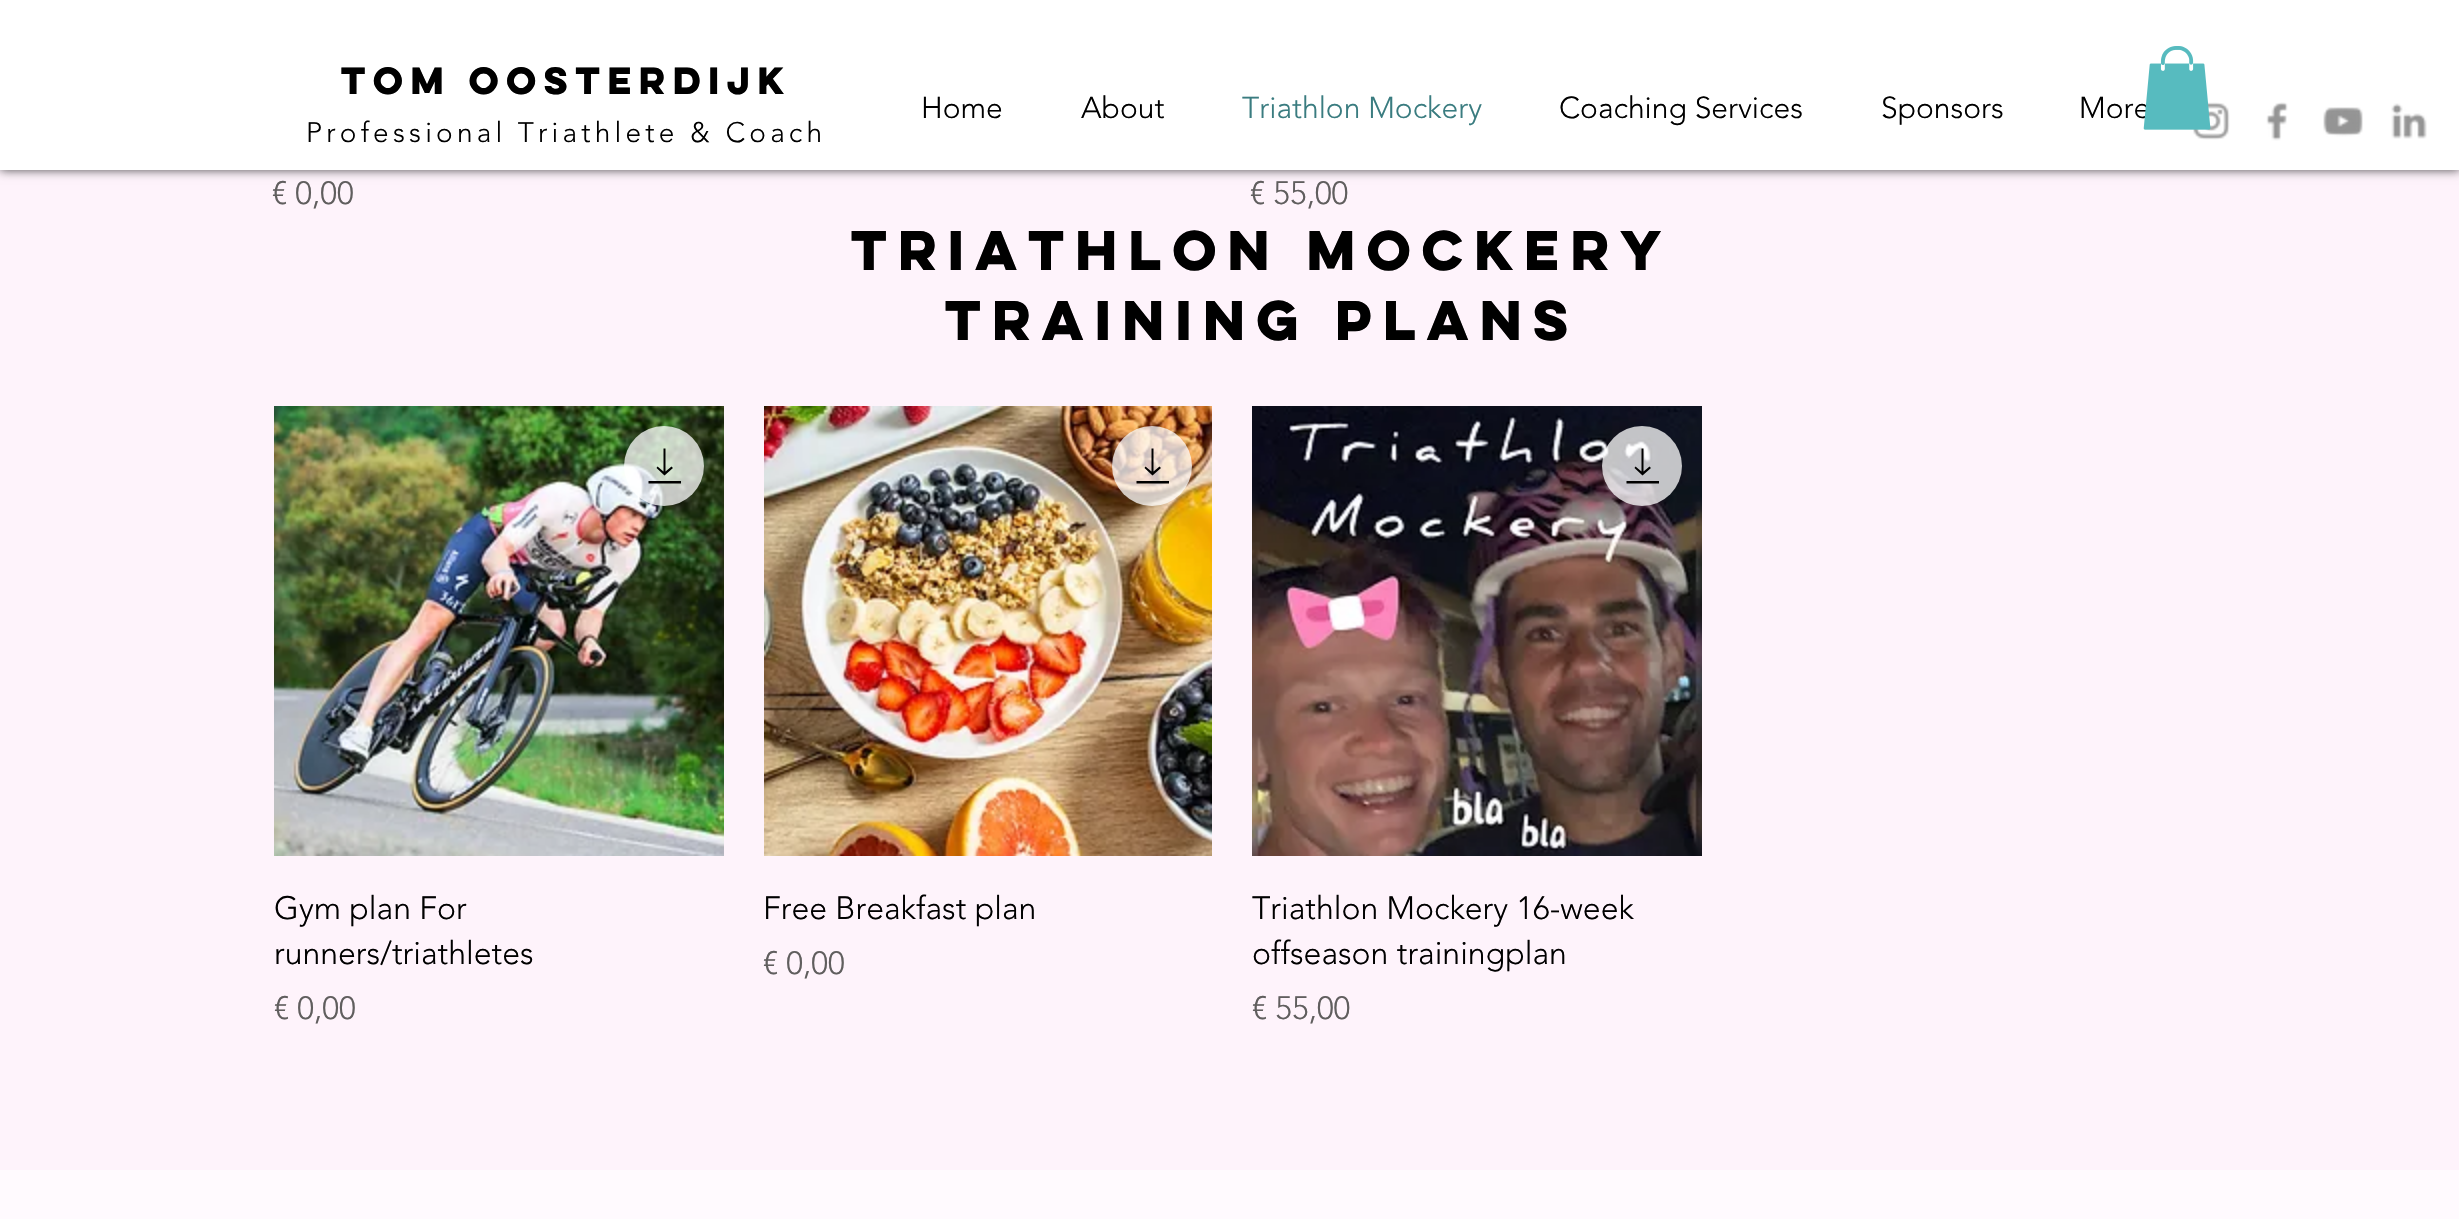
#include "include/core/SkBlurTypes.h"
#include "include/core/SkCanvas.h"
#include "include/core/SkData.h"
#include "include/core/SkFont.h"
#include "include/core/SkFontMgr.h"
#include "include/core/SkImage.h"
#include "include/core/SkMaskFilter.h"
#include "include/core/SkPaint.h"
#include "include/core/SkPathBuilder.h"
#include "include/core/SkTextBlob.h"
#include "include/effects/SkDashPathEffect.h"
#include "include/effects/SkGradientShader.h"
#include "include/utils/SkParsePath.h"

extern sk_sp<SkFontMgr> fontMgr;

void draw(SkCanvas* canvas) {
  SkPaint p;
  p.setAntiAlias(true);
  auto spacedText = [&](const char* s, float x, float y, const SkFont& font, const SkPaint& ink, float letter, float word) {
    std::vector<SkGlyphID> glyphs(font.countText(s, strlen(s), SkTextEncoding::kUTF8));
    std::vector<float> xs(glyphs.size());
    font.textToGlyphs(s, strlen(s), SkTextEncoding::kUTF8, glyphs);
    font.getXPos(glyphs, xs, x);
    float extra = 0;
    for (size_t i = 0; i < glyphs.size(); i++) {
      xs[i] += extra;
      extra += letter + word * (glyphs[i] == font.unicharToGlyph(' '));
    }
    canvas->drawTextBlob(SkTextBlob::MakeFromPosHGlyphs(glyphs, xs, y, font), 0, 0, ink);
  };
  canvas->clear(SkColorSetRGB(254, 243, 251));
  p.setColor(SkColorSetARGB(179, 0, 0, 0));
  p.setMaskFilter(SkMaskFilter::MakeBlur(kNormal_SkBlurStyle, 5));
  canvas->drawRect(SkRect::MakeLTRB(0, 0, 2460, 170), p);
  p.setMaskFilter(nullptr);
  p.setColor(SK_ColorWHITE);
  canvas->drawRect(SkRect::MakeLTRB(0, 0, 2459, 170), p);
  canvas->drawImageRect(SkImages::DeferredFromEncodedData(SkData::MakeFromFileName("images/2.png")), SkRect::MakeLTRB(2193, 102, 2230, 140), SkSamplingOptions());
  canvas->drawImageRect(SkImages::DeferredFromEncodedData(SkData::MakeFromFileName("images/3.png")), SkRect::MakeLTRB(2266, 102, 2288, 141), SkSamplingOptions());
  canvas->drawImageRect(SkImages::DeferredFromEncodedData(SkData::MakeFromFileName("images/4.png")), SkRect::MakeLTRB(2323, 107, 2363, 137), SkSamplingOptions());
  canvas->drawImageRect(SkImages::DeferredFromEncodedData(SkData::MakeFromFileName("images/5.png")), SkRect::MakeLTRB(2391, 103, 2427, 139), SkSamplingOptions());
  canvas->drawImageRect(SkImages::DeferredFromEncodedData(SkData::MakeFromFileName("images/6.png")), SkRect::MakeLTRB(274, 406, 724, 856), SkSamplingOptions());
  p.setColor(SkColorSetARGB(191, 255, 255, 255));
  canvas->drawCircle(664, 466, 40, p);
  p.setColor(SK_ColorBLACK);
  canvas->drawPath(SkPathBuilder().moveTo(671.5f, 466.5f).lineTo(665.5f, 471.5f).lineTo(665.5f, 448.5f).lineTo(663.5f, 448.5f).lineTo(663.5f, 471.5f).lineTo(657.5f, 466.5f).lineTo(656.5f, 468).lineTo(664.5f, 475.5f).lineTo(673, 468).close().moveTo(648.5f, 481).lineTo(681, 481).lineTo(681, 483.5f).lineTo(648.5f, 483.5f).close().detach(), p);
  canvas->drawImageRect(SkImages::DeferredFromEncodedData(SkData::MakeFromFileName("images/7.png")), SkRect::MakeLTRB(764, 406, 1212, 856), SkSamplingOptions());
  p.setColor(SkColorSetARGB(191, 255, 255, 255));
  canvas->drawCircle(1152, 466, 40, p);
  p.setColor(SK_ColorBLACK);
  canvas->drawPath(SkPathBuilder().moveTo(1159.5f, 466.5f).lineTo(1153.5f, 471.5f).lineTo(1153.5f, 448.5f).lineTo(1151.5f, 448.5f).lineTo(1151.5f, 471.5f).lineTo(1145.5f, 466.5f).lineTo(1144.5f, 468).lineTo(1152.5f, 475.5f).lineTo(1161, 468).close().moveTo(1136.5f, 481).lineTo(1169, 481).lineTo(1169, 483.5f).lineTo(1136.5f, 483.5f).close().detach(), p);
  canvas->drawImageRect(SkImages::DeferredFromEncodedData(SkData::MakeFromFileName("images/8.png")), SkRect::MakeLTRB(1252, 406, 1702, 856), SkSamplingOptions());
  p.setColor(SkColorSetARGB(191, 255, 255, 255));
  canvas->drawCircle(1642, 466, 40, p);
  p.setColor(SK_ColorBLACK);
  canvas->drawPath(SkPathBuilder().moveTo(1649.5f, 466.5f).lineTo(1643.5f, 471.5f).lineTo(1643.5f, 448.5f).lineTo(1641.5f, 448.5f).lineTo(1641.5f, 471.5f).lineTo(1635.5f, 466.5f).lineTo(1634.5f, 468).lineTo(1642.5f, 475.5f).lineTo(1651, 468).close().moveTo(1626.5f, 481).lineTo(1659, 481).lineTo(1659, 483.5f).lineTo(1626.5f, 483.5f).close().detach(), p);
  p.setColor(SkColorSetRGB(255, 250, 254));
  canvas->drawRect(SkRect::MakeLTRB(0, 1170, 2459, 1219), p);
  SkFont font1(fontMgr->matchFamilyStyle("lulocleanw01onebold", SkFontStyle::Bold()), 34);
  font1.setSubpixel(true);
  p.setColor(SK_ColorBLACK);
  canvas->drawString("Tom Oosterdijk", 341, 94, font1, p);
  SkFont font2(fontMgr->matchFamilyStyle("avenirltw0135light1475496", SkFontStyle(300, SkFontStyle::kNormal_Width, SkFontStyle::kUpright_Slant)), 28);
  font2.setSubpixel(true);
  spacedText("Professional Triathlete & Coach", 306, 142, font2, p, 4.2f, 0);
  SkFont font3(fontMgr->matchFamilyStyle("avenirltw0135light1475496", SkFontStyle(300, SkFontStyle::kNormal_Width, SkFontStyle::kUpright_Slant)), 30);
  font3.setSubpixel(true);
  canvas->drawString("Home", 921, 118, font3, p);
  canvas->drawString("About", 1081, 118, font3, p);
  p.setColor(SkColorSetRGB(58, 124, 128));
  canvas->drawString("Triathlon Mockery", 1242, 118, font3, p);
  p.setColor(SK_ColorBLACK);
  canvas->drawString("Coaching Services", 1559, 118, font3, p);
  canvas->drawString("Sponsors", 1881, 118, font3, p);
  canvas->drawString("More", 2079, 118, font3, p);
  canvas->drawImageRect(SkImages::DeferredFromEncodedData(SkData::MakeFromFileName("images/1.png")), SkRect::MakeLTRB(2143, 46, 2211, 130), SkSamplingOptions());
  SkFont font4(fontMgr->matchFamilyStyle("avenirltw0135light1475496", SkFontStyle(300, SkFontStyle::kNormal_Width, SkFontStyle::kUpright_Slant)), 32);
  font4.setSubpixel(true);
  p.setColor(SkColorSetRGB(96, 94, 94));
  canvas->drawString("€ 0,00", 272, 204, font4, p);
  canvas->drawString("€ 55,00", 1250, 204, font4, p);
  SkFont font5(fontMgr->matchFamilyStyle("lulocleanw01onebold", SkFontStyle::Bold()), 50);
  font5.setSubpixel(true);
  p.setColor(SK_ColorBLACK);
  canvas->drawString("Triathlon Mockery", 851, 270, font5, p);
  canvas->drawString("training plans", 945, 340, font5, p);
  canvas->drawString("Gym plan For", 274, 919, font4, p);
  canvas->drawString("runners/triathletes", 274, 964, font4, p);
  p.setColor(SkColorSetRGB(96, 94, 94));
  canvas->drawString("€ 0,00", 274, 1019, font4, p);
  p.setColor(SK_ColorBLACK);
  canvas->drawString("Free Breakfast plan", 763, 919, font4, p);
  p.setColor(SkColorSetRGB(96, 94, 94));
  canvas->drawString("€ 0,00", 763, 974, font4, p);
  p.setColor(SK_ColorBLACK);
  canvas->drawString("Triathlon Mockery 16-week", 1252, 919, font4, p);
  canvas->drawString("offseason trainingplan", 1252, 964, font4, p);
  p.setColor(SkColorSetRGB(96, 94, 94));
  canvas->drawString("€ 55,00", 1252, 1019, font4, p);
}
